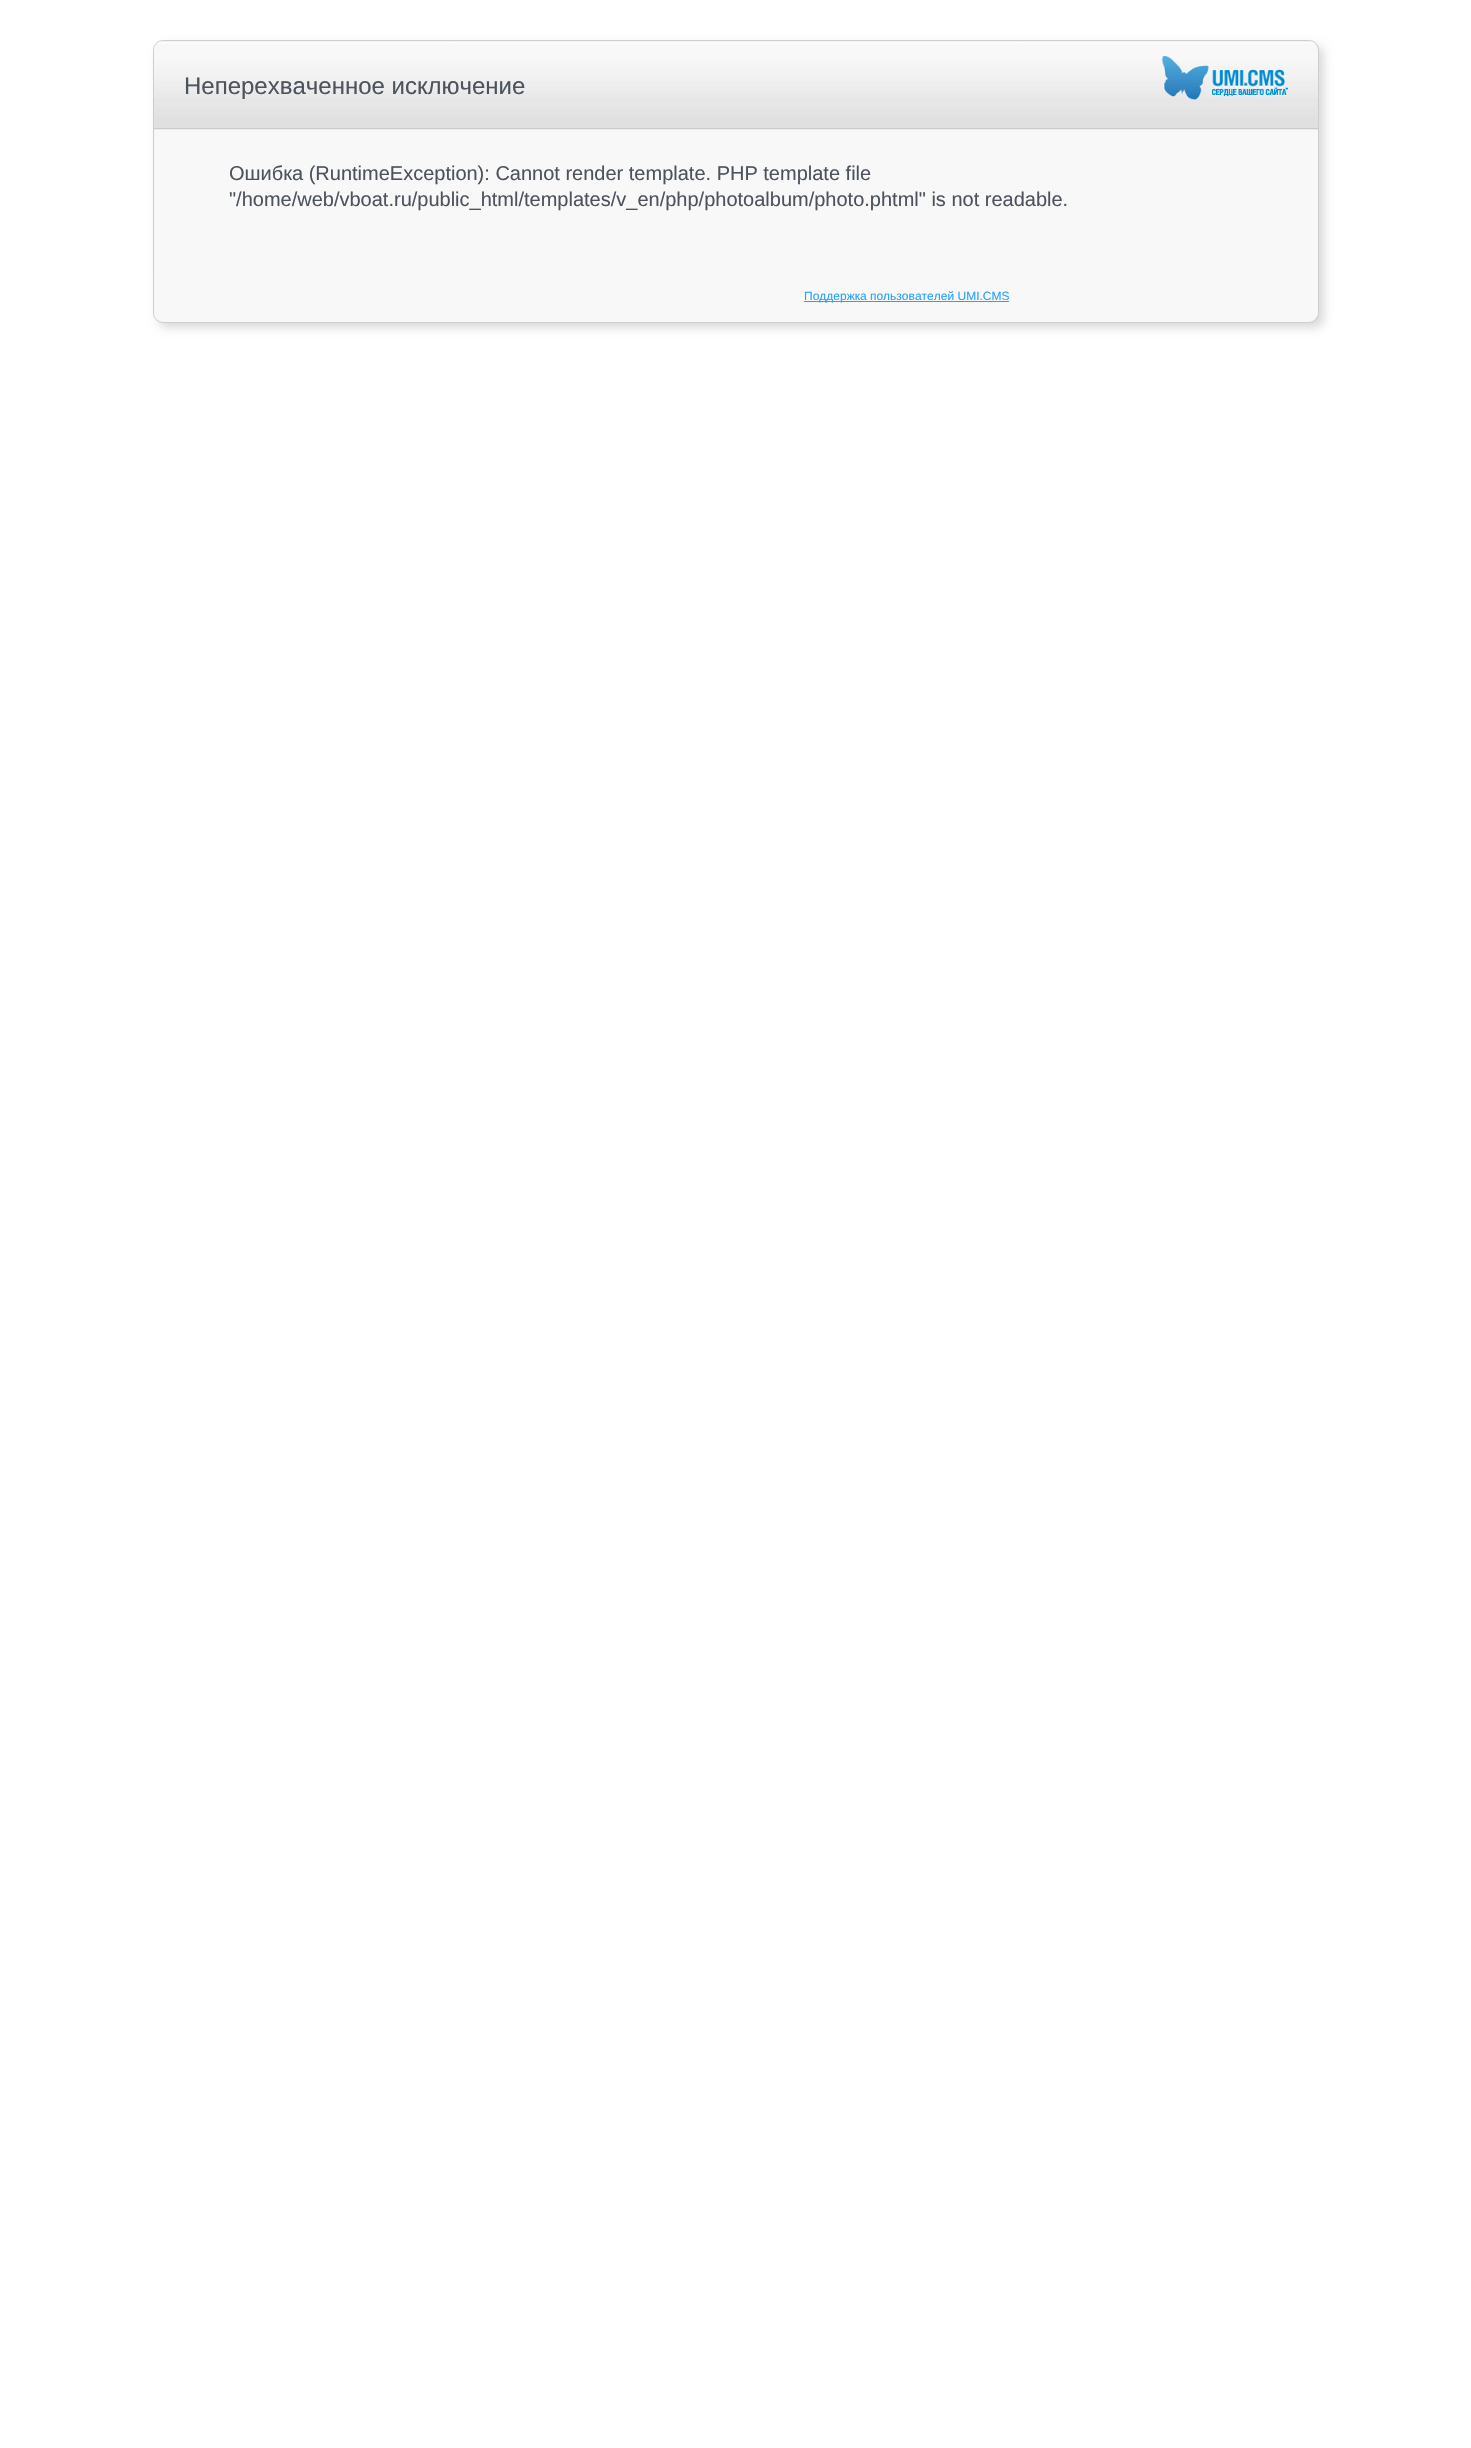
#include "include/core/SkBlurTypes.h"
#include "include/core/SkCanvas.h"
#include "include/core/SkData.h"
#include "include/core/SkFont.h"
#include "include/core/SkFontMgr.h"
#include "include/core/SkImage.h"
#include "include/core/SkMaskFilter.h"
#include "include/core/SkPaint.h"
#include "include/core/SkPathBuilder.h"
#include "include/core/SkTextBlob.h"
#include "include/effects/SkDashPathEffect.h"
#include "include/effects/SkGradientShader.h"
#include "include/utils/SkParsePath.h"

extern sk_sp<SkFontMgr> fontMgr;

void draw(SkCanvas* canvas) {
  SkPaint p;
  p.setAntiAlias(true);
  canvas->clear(SK_ColorWHITE);
  p.setColor(SkColorSetRGB(218, 218, 218));
  p.setMaskFilter(SkMaskFilter::MakeBlur(kNormal_SkBlurStyle, 5));
  canvas->drawRoundRect(SkRect::MakeLTRB(158, 45, 1324, 328), 10, 10, p);
  p.setMaskFilter(nullptr);
  p.setStyle(SkPaint::kStroke_Style);
  p.setStrokeWidth(1);
  p.setColor(SkColorSetRGB(206, 206, 206));
  canvas->drawRoundRect(SkRect::MakeLTRB(153.5f, 40.5f, 1318.5f, 322.5f), 9.5f, 9.5f, p);
  canvas->drawImageRect(SkImages::DeferredFromEncodedData(SkData::MakeFromFileName("images/1.png")), SkRect::MakeLTRB(154, 41, 1318, 129), SkSamplingOptions());
  canvas->drawImageRect(SkImages::DeferredFromEncodedData(SkData::MakeFromFileName("images/2.png")), SkRect::MakeLTRB(1161, 56, 1288, 100), SkSamplingOptions());
  p.setStyle(SkPaint::kFill_Style);
  p.setColor(SkColorSetRGB(248, 248, 248));
  canvas->drawRect(SkRect::MakeLTRB(155, 130, 1318, 272), p);
  p.setColor(SkColorSetRGB(237, 237, 237));
  canvas->drawRect(SkRect::MakeLTRB(154, 129, 1318, 130), p);
  p.setColor(SkColorSetRGB(248, 248, 248));
  canvas->drawPath(SkPathBuilder().moveTo(154, 272).lineTo(1318, 272).lineTo(1318, 312).cubicTo(1318, 317.5f, 1313.5f, 322, 1308, 322).lineTo(164, 322).cubicTo(158.5f, 322, 154, 317.5f, 154, 312).close().detach(), p);
  p.setColor(SkColorSetRGB(38, 161, 255));
  canvas->drawRect(SkRect::MakeLTRB(804, 301, 1009, 302), p);
  SkFont font1(fontMgr->matchFamilyStyle("Liberation Sans", SkFontStyle::Normal()), 24);
  font1.setSubpixel(true);
  p.setColor(SkColorSetRGB(76, 83, 93));
  canvas->drawString("Неперехваченное исключение", 184, 94, font1, p);
  SkFont font2(fontMgr->matchFamilyStyle("Liberation Sans", SkFontStyle::Normal()), 20);
  font2.setSubpixel(true);
  canvas->drawString("Ошибка (RuntimeException): Cannot render template. PHP template file", 229, 180, font2, p);
  canvas->drawString("\"/home/web/vboat.ru/public_html/templates/v_en/php/photoalbum/photo.phtml\" is not readable.", 229, 206, font2, p);
  SkFont font3(fontMgr->matchFamilyStyle("Liberation Sans", SkFontStyle::Normal()), 12);
  font3.setSubpixel(true);
  p.setColor(SkColorSetRGB(38, 161, 255));
  canvas->drawString("Поддержка пользователей UMI.CMS", 804, 300, font3, p);
}
